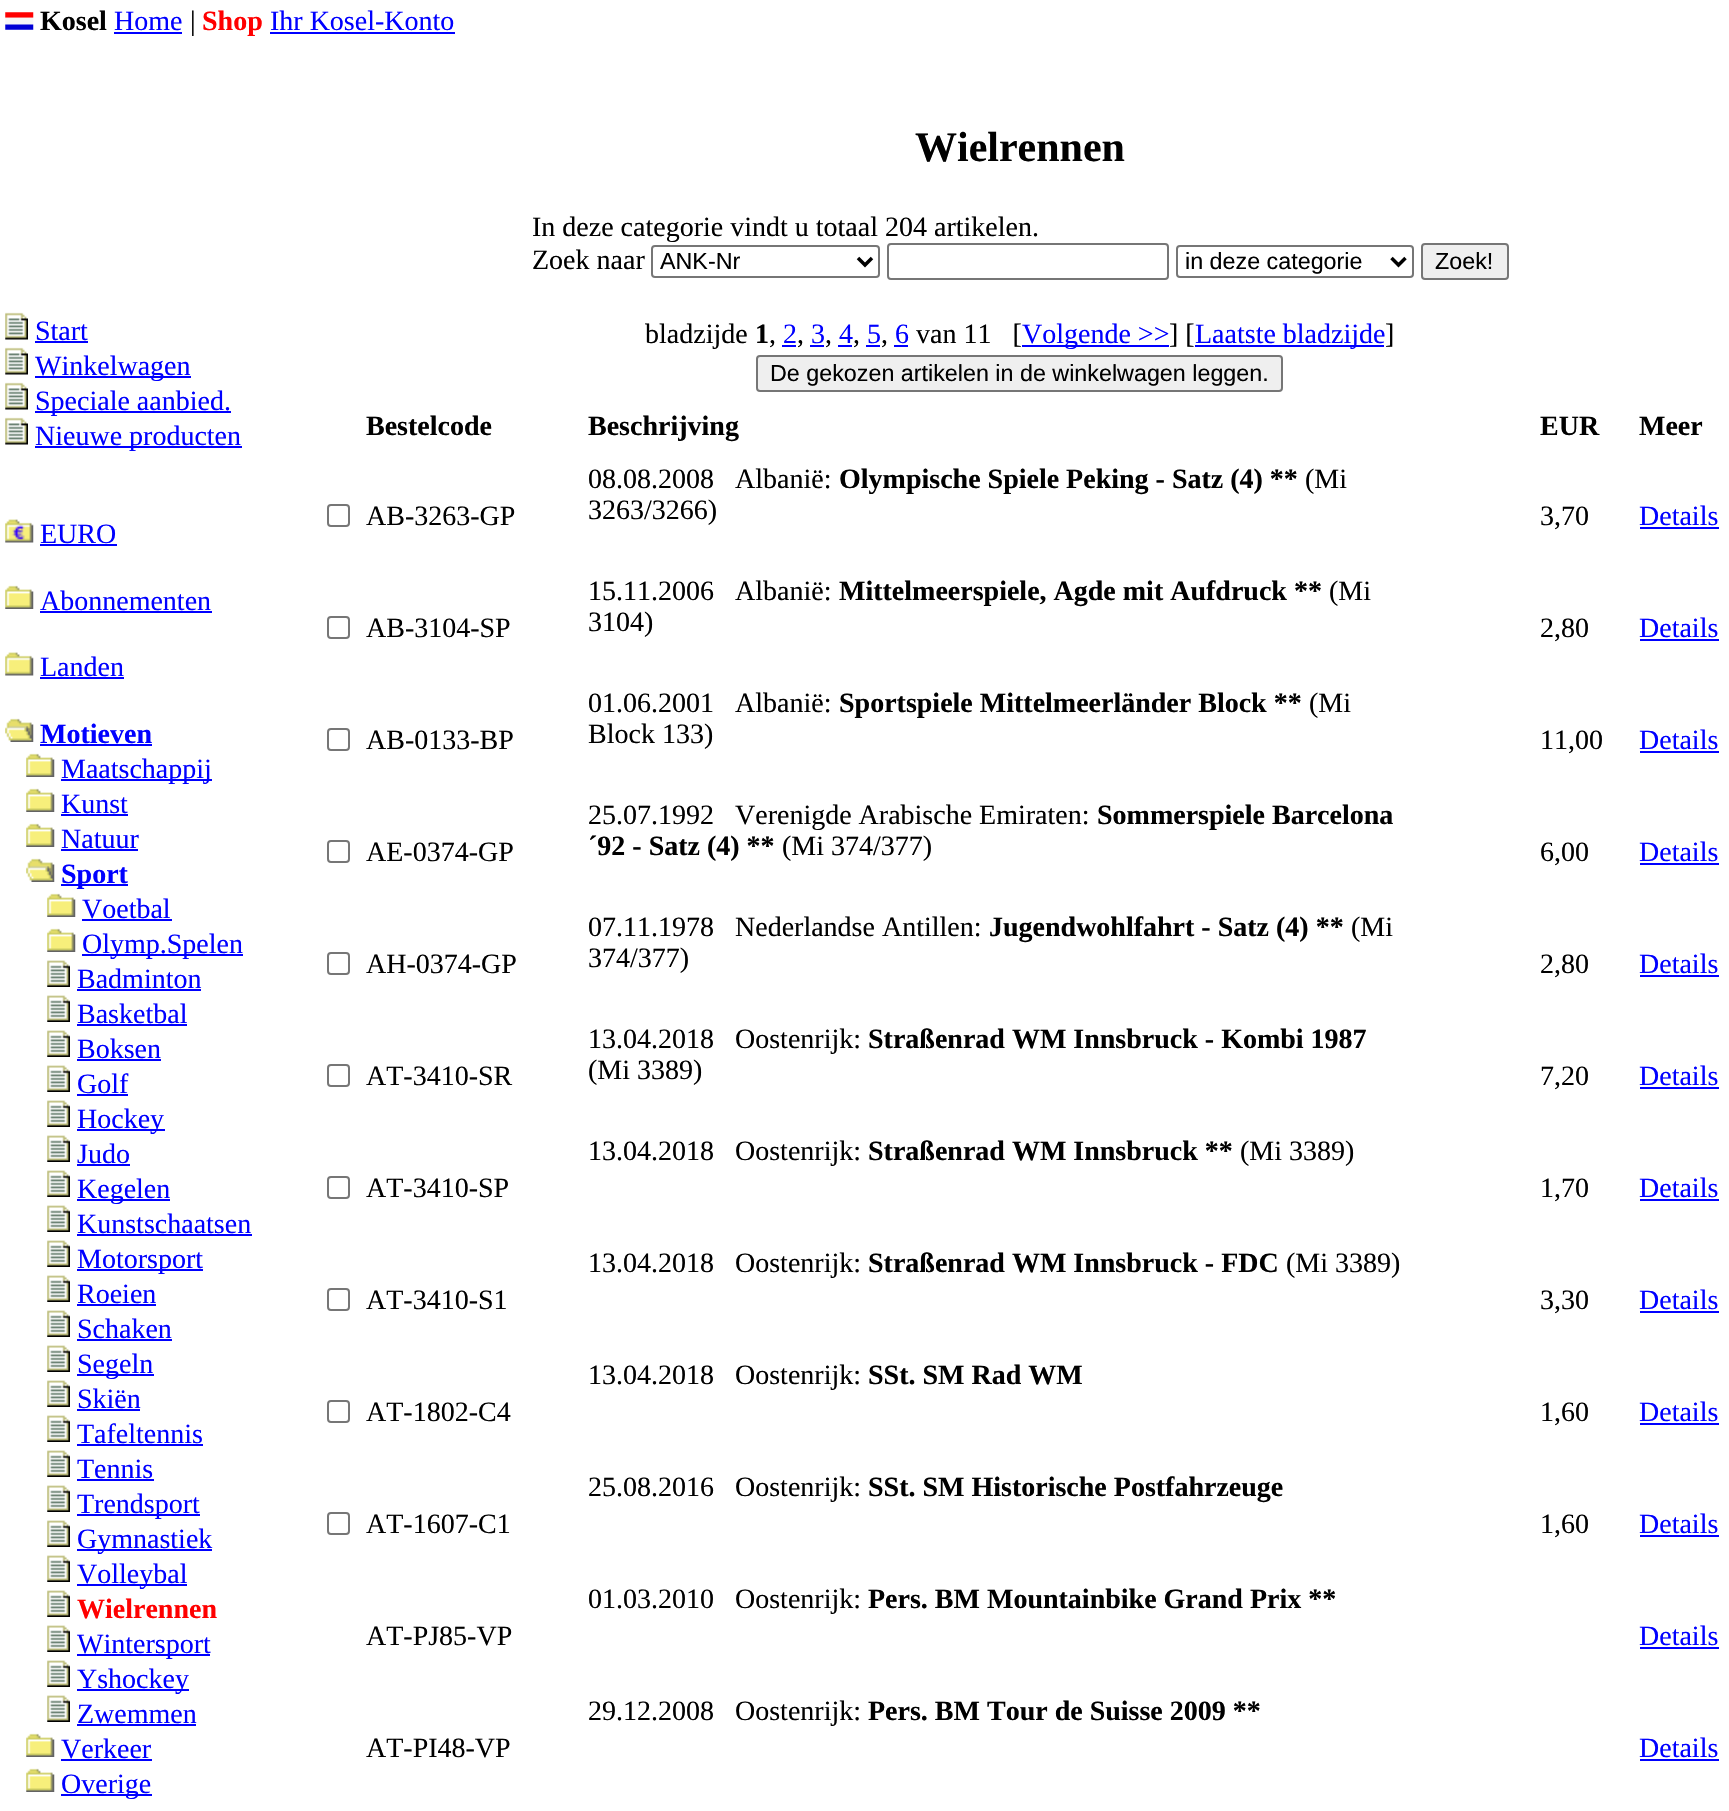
#include "include/core/SkBlurTypes.h"
#include "include/core/SkCanvas.h"
#include "include/core/SkData.h"
#include "include/core/SkFont.h"
#include "include/core/SkFontMgr.h"
#include "include/core/SkImage.h"
#include "include/core/SkMaskFilter.h"
#include "include/core/SkPaint.h"
#include "include/core/SkPathBuilder.h"
#include "include/core/SkTextBlob.h"
#include "include/effects/SkDashPathEffect.h"
#include "include/effects/SkGradientShader.h"
#include "include/utils/SkParsePath.h"

extern sk_sp<SkFontMgr> fontMgr;

void draw(SkCanvas* canvas) {
  SkPaint p;
  p.setAntiAlias(true);
  canvas->clear(SK_ColorWHITE);
  canvas->drawImageRect(SkImages::DeferredFromEncodedData(SkData::MakeFromFileName("images/1.png")), SkRect::MakeLTRB(5, 12, 34, 30), SkSamplingOptions());
  p.setColor(SkColorSetRGB(0, 0, 255));
  canvas->drawRect(SkRect::MakeLTRB(114, 32, 182, 34), p);
  canvas->drawRect(SkRect::MakeLTRB(270, 32, 455, 34), p);
  canvas->drawImageRect(SkImages::DeferredFromEncodedData(SkData::MakeFromFileName("images/2.png")), SkRect::MakeLTRB(5, 312, 28, 340), SkSamplingOptions());
  canvas->drawRect(SkRect::MakeLTRB(35, 341, 88, 343), p);
  canvas->drawImageRect(SkImages::DeferredFromEncodedData(SkData::MakeFromFileName("images/2.png")), SkRect::MakeLTRB(5, 347, 28, 375), SkSamplingOptions());
  canvas->drawRect(SkRect::MakeLTRB(35, 376, 191, 378), p);
  canvas->drawImageRect(SkImages::DeferredFromEncodedData(SkData::MakeFromFileName("images/2.png")), SkRect::MakeLTRB(5, 382, 28, 410), SkSamplingOptions());
  canvas->drawRect(SkRect::MakeLTRB(35, 411, 231, 413), p);
  canvas->drawImageRect(SkImages::DeferredFromEncodedData(SkData::MakeFromFileName("images/2.png")), SkRect::MakeLTRB(5, 417, 28, 445), SkSamplingOptions());
  canvas->drawRect(SkRect::MakeLTRB(35, 446, 242, 448), p);
  canvas->drawImageRect(SkImages::DeferredFromEncodedData(SkData::MakeFromFileName("images/3.png")), SkRect::MakeLTRB(5, 519, 34, 543), SkSamplingOptions());
  canvas->drawRect(SkRect::MakeLTRB(40, 544, 117, 546), p);
  canvas->drawImageRect(SkImages::DeferredFromEncodedData(SkData::MakeFromFileName("images/4.png")), SkRect::MakeLTRB(5, 585, 34, 609), SkSamplingOptions());
  canvas->drawRect(SkRect::MakeLTRB(40, 611, 212, 613), p);
  canvas->drawImageRect(SkImages::DeferredFromEncodedData(SkData::MakeFromFileName("images/5.png")), SkRect::MakeLTRB(5, 652, 34, 676), SkSamplingOptions());
  canvas->drawRect(SkRect::MakeLTRB(40, 677, 124, 679), p);
  canvas->drawImageRect(SkImages::DeferredFromEncodedData(SkData::MakeFromFileName("images/6.png")), SkRect::MakeLTRB(5, 718, 34, 742), SkSamplingOptions());
  canvas->drawRect(SkRect::MakeLTRB(40, 744, 152, 746), p);
  canvas->drawImageRect(SkImages::DeferredFromEncodedData(SkData::MakeFromFileName("images/4.png")), SkRect::MakeLTRB(26, 753, 55, 777), SkSamplingOptions());
  canvas->drawRect(SkRect::MakeLTRB(61, 779, 212, 781), p);
  canvas->drawImageRect(SkImages::DeferredFromEncodedData(SkData::MakeFromFileName("images/4.png")), SkRect::MakeLTRB(26, 788, 55, 812), SkSamplingOptions());
  canvas->drawRect(SkRect::MakeLTRB(61, 814, 128, 816), p);
  canvas->drawImageRect(SkImages::DeferredFromEncodedData(SkData::MakeFromFileName("images/4.png")), SkRect::MakeLTRB(26, 823, 55, 847), SkSamplingOptions());
  canvas->drawRect(SkRect::MakeLTRB(61, 849, 138, 851), p);
  canvas->drawImageRect(SkImages::DeferredFromEncodedData(SkData::MakeFromFileName("images/6.png")), SkRect::MakeLTRB(26, 858, 55, 882), SkSamplingOptions());
  canvas->drawRect(SkRect::MakeLTRB(61, 884, 128, 886), p);
  canvas->drawImageRect(SkImages::DeferredFromEncodedData(SkData::MakeFromFileName("images/7.png")), SkRect::MakeLTRB(47, 893, 76, 917), SkSamplingOptions());
  canvas->drawRect(SkRect::MakeLTRB(82, 919, 172, 921), p);
  canvas->drawImageRect(SkImages::DeferredFromEncodedData(SkData::MakeFromFileName("images/7.png")), SkRect::MakeLTRB(47, 928, 76, 952), SkSamplingOptions());
  canvas->drawRect(SkRect::MakeLTRB(82, 954, 243, 956), p);
  canvas->drawImageRect(SkImages::DeferredFromEncodedData(SkData::MakeFromFileName("images/8.png")), SkRect::MakeLTRB(47, 960, 70, 987), SkSamplingOptions());
  canvas->drawRect(SkRect::MakeLTRB(77, 989, 201, 991), p);
  canvas->drawImageRect(SkImages::DeferredFromEncodedData(SkData::MakeFromFileName("images/8.png")), SkRect::MakeLTRB(47, 995, 70, 1022), SkSamplingOptions());
  canvas->drawRect(SkRect::MakeLTRB(77, 1024, 187, 1026), p);
  canvas->drawImageRect(SkImages::DeferredFromEncodedData(SkData::MakeFromFileName("images/8.png")), SkRect::MakeLTRB(47, 1030, 70, 1057), SkSamplingOptions());
  canvas->drawRect(SkRect::MakeLTRB(77, 1059, 161, 1061), p);
  canvas->drawImageRect(SkImages::DeferredFromEncodedData(SkData::MakeFromFileName("images/8.png")), SkRect::MakeLTRB(47, 1065, 70, 1092), SkSamplingOptions());
  canvas->drawRect(SkRect::MakeLTRB(77, 1094, 128, 1096), p);
  canvas->drawImageRect(SkImages::DeferredFromEncodedData(SkData::MakeFromFileName("images/8.png")), SkRect::MakeLTRB(47, 1100, 70, 1127), SkSamplingOptions());
  canvas->drawRect(SkRect::MakeLTRB(77, 1129, 165, 1131), p);
  canvas->drawImageRect(SkImages::DeferredFromEncodedData(SkData::MakeFromFileName("images/8.png")), SkRect::MakeLTRB(47, 1135, 70, 1162), SkSamplingOptions());
  canvas->drawRect(SkRect::MakeLTRB(77, 1164, 130, 1166), p);
  canvas->drawImageRect(SkImages::DeferredFromEncodedData(SkData::MakeFromFileName("images/8.png")), SkRect::MakeLTRB(47, 1170, 70, 1197), SkSamplingOptions());
  canvas->drawRect(SkRect::MakeLTRB(77, 1199, 170, 1201), p);
  canvas->drawImageRect(SkImages::DeferredFromEncodedData(SkData::MakeFromFileName("images/8.png")), SkRect::MakeLTRB(47, 1205, 70, 1232), SkSamplingOptions());
  canvas->drawRect(SkRect::MakeLTRB(77, 1234, 252, 1236), p);
  canvas->drawImageRect(SkImages::DeferredFromEncodedData(SkData::MakeFromFileName("images/8.png")), SkRect::MakeLTRB(47, 1240, 70, 1267), SkSamplingOptions());
  canvas->drawRect(SkRect::MakeLTRB(77, 1269, 203, 1271), p);
  canvas->drawImageRect(SkImages::DeferredFromEncodedData(SkData::MakeFromFileName("images/8.png")), SkRect::MakeLTRB(47, 1275, 70, 1302), SkSamplingOptions());
  canvas->drawRect(SkRect::MakeLTRB(77, 1304, 156, 1306), p);
  canvas->drawImageRect(SkImages::DeferredFromEncodedData(SkData::MakeFromFileName("images/8.png")), SkRect::MakeLTRB(47, 1310, 70, 1337), SkSamplingOptions());
  canvas->drawRect(SkRect::MakeLTRB(77, 1339, 172, 1341), p);
  canvas->drawImageRect(SkImages::DeferredFromEncodedData(SkData::MakeFromFileName("images/8.png")), SkRect::MakeLTRB(47, 1345, 70, 1372), SkSamplingOptions());
  canvas->drawRect(SkRect::MakeLTRB(77, 1374, 154, 1376), p);
  canvas->drawImageRect(SkImages::DeferredFromEncodedData(SkData::MakeFromFileName("images/8.png")), SkRect::MakeLTRB(47, 1380, 70, 1407), SkSamplingOptions());
  canvas->drawRect(SkRect::MakeLTRB(77, 1409, 140, 1411), p);
  canvas->drawImageRect(SkImages::DeferredFromEncodedData(SkData::MakeFromFileName("images/8.png")), SkRect::MakeLTRB(47, 1415, 70, 1442), SkSamplingOptions());
  canvas->drawRect(SkRect::MakeLTRB(77, 1444, 203, 1446), p);
  canvas->drawImageRect(SkImages::DeferredFromEncodedData(SkData::MakeFromFileName("images/8.png")), SkRect::MakeLTRB(47, 1450, 70, 1477), SkSamplingOptions());
  canvas->drawRect(SkRect::MakeLTRB(77, 1479, 154, 1481), p);
  canvas->drawImageRect(SkImages::DeferredFromEncodedData(SkData::MakeFromFileName("images/8.png")), SkRect::MakeLTRB(47, 1485, 70, 1512), SkSamplingOptions());
  canvas->drawRect(SkRect::MakeLTRB(77, 1514, 200, 1516), p);
  canvas->drawImageRect(SkImages::DeferredFromEncodedData(SkData::MakeFromFileName("images/8.png")), SkRect::MakeLTRB(47, 1520, 70, 1547), SkSamplingOptions());
  canvas->drawRect(SkRect::MakeLTRB(77, 1549, 212, 1551), p);
  canvas->drawImageRect(SkImages::DeferredFromEncodedData(SkData::MakeFromFileName("images/8.png")), SkRect::MakeLTRB(47, 1555, 70, 1582), SkSamplingOptions());
  canvas->drawRect(SkRect::MakeLTRB(77, 1584, 187, 1586), p);
  canvas->drawImageRect(SkImages::DeferredFromEncodedData(SkData::MakeFromFileName("images/8.png")), SkRect::MakeLTRB(47, 1590, 70, 1617), SkSamplingOptions());
  canvas->drawImageRect(SkImages::DeferredFromEncodedData(SkData::MakeFromFileName("images/8.png")), SkRect::MakeLTRB(47, 1625, 70, 1652), SkSamplingOptions());
  canvas->drawRect(SkRect::MakeLTRB(77, 1654, 210, 1656), p);
  canvas->drawImageRect(SkImages::DeferredFromEncodedData(SkData::MakeFromFileName("images/8.png")), SkRect::MakeLTRB(47, 1660, 70, 1687), SkSamplingOptions());
  canvas->drawRect(SkRect::MakeLTRB(77, 1689, 189, 1691), p);
  canvas->drawImageRect(SkImages::DeferredFromEncodedData(SkData::MakeFromFileName("images/8.png")), SkRect::MakeLTRB(47, 1695, 70, 1722), SkSamplingOptions());
  canvas->drawRect(SkRect::MakeLTRB(77, 1724, 196, 1726), p);
  canvas->drawImageRect(SkImages::DeferredFromEncodedData(SkData::MakeFromFileName("images/4.png")), SkRect::MakeLTRB(26, 1733, 55, 1757), SkSamplingOptions());
  canvas->drawRect(SkRect::MakeLTRB(61, 1759, 152, 1761), p);
  canvas->drawImageRect(SkImages::DeferredFromEncodedData(SkData::MakeFromFileName("images/4.png")), SkRect::MakeLTRB(26, 1768, 55, 1792), SkSamplingOptions());
  canvas->drawRect(SkRect::MakeLTRB(61, 1794, 152, 1796), p);
  p.setStyle(SkPaint::kStroke_Style);
  p.setStrokeWidth(2);
  p.setColor(SkColorSetRGB(118, 118, 118));
  canvas->drawRoundRect(SkRect::MakeLTRB(652, 246, 879, 277), 3, 3, p);
  p.setStrokeWidth(3.5f);
  p.setColor(SK_ColorBLACK);
  canvas->drawPath(SkPathBuilder().moveTo(858, 258).lineTo(865, 265).lineTo(872, 258).detach(), p);
  p.setStrokeWidth(2);
  p.setColor(SkColorSetRGB(118, 118, 118));
  canvas->drawRoundRect(SkRect::MakeLTRB(888, 244, 1168, 279), 3, 3, p);
  canvas->drawRoundRect(SkRect::MakeLTRB(1177, 246, 1413, 277), 3, 3, p);
  p.setStrokeWidth(3.5f);
  p.setColor(SK_ColorBLACK);
  canvas->drawPath(SkPathBuilder().moveTo(1391.5f, 258).lineTo(1398.5f, 265).lineTo(1405.5f, 258).detach(), p);
  p.setStyle(SkPaint::kFill_Style);
  p.setColor(SkColorSetRGB(239, 239, 239));
  canvas->drawRoundRect(SkRect::MakeLTRB(1422, 244, 1508, 279), 3, 3, p);
  p.setStyle(SkPaint::kStroke_Style);
  p.setStrokeWidth(2);
  p.setColor(SkColorSetRGB(118, 118, 118));
  canvas->drawRoundRect(SkRect::MakeLTRB(1422, 244, 1508, 279), 3, 3, p);
  p.setStyle(SkPaint::kFill_Style);
  p.setColor(SkColorSetRGB(0, 0, 255));
  canvas->drawRect(SkRect::MakeLTRB(782, 345, 796, 347), p);
  canvas->drawRect(SkRect::MakeLTRB(810, 345, 824, 347), p);
  canvas->drawRect(SkRect::MakeLTRB(838, 345, 852, 347), p);
  canvas->drawRect(SkRect::MakeLTRB(866, 345, 880, 347), p);
  canvas->drawRect(SkRect::MakeLTRB(894, 345, 908, 347), p);
  canvas->drawRect(SkRect::MakeLTRB(1022, 345, 1169, 347), p);
  canvas->drawRect(SkRect::MakeLTRB(1195, 345, 1384, 347), p);
  p.setColor(SkColorSetRGB(239, 239, 239));
  canvas->drawRoundRect(SkRect::MakeLTRB(757, 356, 1282, 391), 3, 3, p);
  p.setStyle(SkPaint::kStroke_Style);
  p.setColor(SkColorSetRGB(118, 118, 118));
  canvas->drawRoundRect(SkRect::MakeLTRB(757, 356, 1282, 391), 3, 3, p);
  canvas->drawRoundRect(SkRect::MakeLTRB(328, 505, 349, 526), 3, 3, p);
  p.setStyle(SkPaint::kFill_Style);
  p.setColor(SkColorSetRGB(0, 0, 255));
  canvas->drawRect(SkRect::MakeLTRB(1640, 527, 1719, 529), p);
  p.setStyle(SkPaint::kStroke_Style);
  p.setColor(SkColorSetRGB(118, 118, 118));
  canvas->drawRoundRect(SkRect::MakeLTRB(328, 617, 349, 638), 3, 3, p);
  p.setStyle(SkPaint::kFill_Style);
  p.setColor(SkColorSetRGB(0, 0, 255));
  canvas->drawRect(SkRect::MakeLTRB(1640, 639, 1719, 641), p);
  p.setStyle(SkPaint::kStroke_Style);
  p.setColor(SkColorSetRGB(118, 118, 118));
  canvas->drawRoundRect(SkRect::MakeLTRB(328, 729, 349, 750), 3, 3, p);
  p.setStyle(SkPaint::kFill_Style);
  p.setColor(SkColorSetRGB(0, 0, 255));
  canvas->drawRect(SkRect::MakeLTRB(1640, 751, 1719, 753), p);
  p.setStyle(SkPaint::kStroke_Style);
  p.setColor(SkColorSetRGB(118, 118, 118));
  canvas->drawRoundRect(SkRect::MakeLTRB(328, 841, 349, 862), 3, 3, p);
  p.setStyle(SkPaint::kFill_Style);
  p.setColor(SkColorSetRGB(0, 0, 255));
  canvas->drawRect(SkRect::MakeLTRB(1640, 863, 1719, 865), p);
  p.setStyle(SkPaint::kStroke_Style);
  p.setColor(SkColorSetRGB(118, 118, 118));
  canvas->drawRoundRect(SkRect::MakeLTRB(328, 953, 349, 974), 3, 3, p);
  p.setStyle(SkPaint::kFill_Style);
  p.setColor(SkColorSetRGB(0, 0, 255));
  canvas->drawRect(SkRect::MakeLTRB(1640, 975, 1719, 977), p);
  p.setStyle(SkPaint::kStroke_Style);
  p.setColor(SkColorSetRGB(118, 118, 118));
  canvas->drawRoundRect(SkRect::MakeLTRB(328, 1065, 349, 1086), 3, 3, p);
  p.setStyle(SkPaint::kFill_Style);
  p.setColor(SkColorSetRGB(0, 0, 255));
  canvas->drawRect(SkRect::MakeLTRB(1640, 1087, 1719, 1089), p);
  p.setStyle(SkPaint::kStroke_Style);
  p.setColor(SkColorSetRGB(118, 118, 118));
  canvas->drawRoundRect(SkRect::MakeLTRB(328, 1177, 349, 1198), 3, 3, p);
  p.setStyle(SkPaint::kFill_Style);
  p.setColor(SkColorSetRGB(0, 0, 255));
  canvas->drawRect(SkRect::MakeLTRB(1640, 1199, 1719, 1201), p);
  p.setStyle(SkPaint::kStroke_Style);
  p.setColor(SkColorSetRGB(118, 118, 118));
  canvas->drawRoundRect(SkRect::MakeLTRB(328, 1289, 349, 1310), 3, 3, p);
  p.setStyle(SkPaint::kFill_Style);
  p.setColor(SkColorSetRGB(0, 0, 255));
  canvas->drawRect(SkRect::MakeLTRB(1640, 1311, 1719, 1313), p);
  p.setStyle(SkPaint::kStroke_Style);
  p.setColor(SkColorSetRGB(118, 118, 118));
  canvas->drawRoundRect(SkRect::MakeLTRB(328, 1401, 349, 1422), 3, 3, p);
  p.setStyle(SkPaint::kFill_Style);
  p.setColor(SkColorSetRGB(0, 0, 255));
  canvas->drawRect(SkRect::MakeLTRB(1640, 1423, 1719, 1425), p);
  p.setStyle(SkPaint::kStroke_Style);
  p.setColor(SkColorSetRGB(118, 118, 118));
  canvas->drawRoundRect(SkRect::MakeLTRB(328, 1513, 349, 1534), 3, 3, p);
  p.setStyle(SkPaint::kFill_Style);
  p.setColor(SkColorSetRGB(0, 0, 255));
  canvas->drawRect(SkRect::MakeLTRB(1640, 1535, 1719, 1537), p);
  canvas->drawRect(SkRect::MakeLTRB(1640, 1647, 1719, 1649), p);
  canvas->drawRect(SkRect::MakeLTRB(1640, 1759, 1719, 1761), p);
  SkFont font1(fontMgr->matchFamilyStyle("Liberation Serif", SkFontStyle::Bold()), 28);
  font1.setSubpixel(true);
  p.setColor(SK_ColorBLACK);
  canvas->drawString("Kosel", 40, 30, font1, p);
  SkFont font2(fontMgr->matchFamilyStyle("Liberation Serif", SkFontStyle::Normal()), 28);
  font2.setSubpixel(true);
  p.setColor(SkColorSetRGB(0, 0, 255));
  canvas->drawString("Home", 114, 30, font2, p);
  p.setColor(SK_ColorBLACK);
  canvas->drawString("|", 190, 30, font2, p);
  p.setColor(SkColorSetRGB(255, 0, 0));
  canvas->drawString("Shop", 202, 30, font1, p);
  p.setColor(SkColorSetRGB(0, 0, 255));
  canvas->drawString("Ihr Kosel-Konto", 270, 30, font2, p);
  canvas->drawString("Start", 35, 340, font2, p);
  canvas->drawString("Winkelwagen", 35, 375, font2, p);
  canvas->drawString("Speciale aanbied.", 35, 410, font2, p);
  canvas->drawString("Nieuwe producten", 35, 445, font2, p);
  canvas->drawString("EURO", 40, 543, font2, p);
  canvas->drawString("Abonnementen", 40, 610, font2, p);
  canvas->drawString("Landen", 40, 676, font2, p);
  canvas->drawString("Motieven", 40, 743, font1, p);
  canvas->drawString("Maatschappij", 61, 778, font2, p);
  canvas->drawString("Kunst", 61, 813, font2, p);
  canvas->drawString("Natuur", 61, 848, font2, p);
  canvas->drawString("Sport", 61, 883, font1, p);
  canvas->drawString("Voetbal", 82, 918, font2, p);
  canvas->drawString("Olymp.Spelen", 82, 953, font2, p);
  canvas->drawString("Badminton", 77, 988, font2, p);
  canvas->drawString("Basketbal", 77, 1023, font2, p);
  canvas->drawString("Boksen", 77, 1058, font2, p);
  canvas->drawString("Golf", 77, 1093, font2, p);
  canvas->drawString("Hockey", 77, 1128, font2, p);
  canvas->drawString("Judo", 77, 1163, font2, p);
  canvas->drawString("Kegelen", 77, 1198, font2, p);
  canvas->drawString("Kunstschaatsen", 77, 1233, font2, p);
  canvas->drawString("Motorsport", 77, 1268, font2, p);
  canvas->drawString("Roeien", 77, 1303, font2, p);
  canvas->drawString("Schaken", 77, 1338, font2, p);
  canvas->drawString("Segeln", 77, 1373, font2, p);
  canvas->drawString("Skiën", 77, 1408, font2, p);
  canvas->drawString("Tafeltennis", 77, 1443, font2, p);
  canvas->drawString("Tennis", 77, 1478, font2, p);
  canvas->drawString("Trendsport", 77, 1513, font2, p);
  canvas->drawString("Gymnastiek", 77, 1548, font2, p);
  canvas->drawString("Volleybal", 77, 1583, font2, p);
  p.setColor(SkColorSetRGB(255, 0, 0));
  canvas->drawString("Wielrennen", 77, 1618, font1, p);
  p.setColor(SkColorSetRGB(0, 0, 255));
  canvas->drawString("Wintersport", 77, 1653, font2, p);
  canvas->drawString("Yshockey", 77, 1688, font2, p);
  canvas->drawString("Zwemmen", 77, 1723, font2, p);
  canvas->drawString("Verkeer", 61, 1758, font2, p);
  canvas->drawString("Overige", 61, 1793, font2, p);
  SkFont font3(fontMgr->matchFamilyStyle("Liberation Serif", SkFontStyle::Bold()), 42);
  font3.setSubpixel(true);
  p.setColor(SK_ColorBLACK);
  canvas->drawString("Wielrennen", 915, 161, font3, p);
  canvas->drawString("In deze categorie vindt u totaal 204 artikelen.", 532, 236, font2, p);
  canvas->drawString("Zoek naar", 532, 269, font2, p);
  SkFont font4(fontMgr->matchFamilyStyle("Liberation Sans", SkFontStyle::Normal()), 23.3f);
  font4.setSubpixel(true);
  canvas->drawString("ANK-Nr", 660, 269, font4, p);
  canvas->drawString("in deze categorie", 1185, 269, font4, p);
  canvas->drawString("Zoek!", 1435, 269, font4, p);
  canvas->drawString("bladzijde", 645, 343, font2, p);
  canvas->drawString("1", 755, 343, font1, p);
  canvas->drawString(",", 769, 343, font2, p);
  p.setColor(SkColorSetRGB(0, 0, 255));
  canvas->drawString("2", 783, 343, font2, p);
  p.setColor(SK_ColorBLACK);
  canvas->drawString(",", 797, 343, font2, p);
  p.setColor(SkColorSetRGB(0, 0, 255));
  canvas->drawString("3", 811, 343, font2, p);
  p.setColor(SK_ColorBLACK);
  canvas->drawString(",", 825, 343, font2, p);
  p.setColor(SkColorSetRGB(0, 0, 255));
  canvas->drawString("4", 839, 343, font2, p);
  p.setColor(SK_ColorBLACK);
  canvas->drawString(",", 853, 343, font2, p);
  p.setColor(SkColorSetRGB(0, 0, 255));
  canvas->drawString("5", 867, 343, font2, p);
  p.setColor(SK_ColorBLACK);
  canvas->drawString(",", 881, 343, font2, p);
  p.setColor(SkColorSetRGB(0, 0, 255));
  canvas->drawString("6", 895, 343, font2, p);
  p.setColor(SK_ColorBLACK);
  canvas->drawString("van 11   [", 916, 343, font2, p);
  p.setColor(SkColorSetRGB(0, 0, 255));
  canvas->drawString("Volgende >>", 1022, 343, font2, p);
  p.setColor(SK_ColorBLACK);
  canvas->drawString("] [", 1169, 343, font2, p);
  p.setColor(SkColorSetRGB(0, 0, 255));
  canvas->drawString("Laatste bladzijde", 1195, 343, font2, p);
  p.setColor(SK_ColorBLACK);
  canvas->drawString("]", 1385, 343, font2, p);
  canvas->drawString("De gekozen artikelen in de winkelwagen leggen.", 770, 381, font4, p);
  canvas->drawString("Bestelcode", 366, 435, font1, p);
  canvas->drawString("Beschrijving", 588, 435, font1, p);
  canvas->drawString("EUR", 1540, 435, font1, p);
  canvas->drawString("Meer", 1639, 435, font1, p);
  canvas->drawString("AB-3263-GP", 366, 525, font2, p);
  canvas->drawString("08.08.2008   Albanië:", 588, 488, font2, p);
  canvas->drawString("Olympische Spiele Peking - Satz (4) **", 839, 488, font1, p);
  canvas->drawString("(Mi", 1305, 488, font2, p);
  canvas->drawString("3263/3266)", 588, 519, font2, p);
  canvas->drawString("3,70", 1540, 525, font2, p);
  p.setColor(SkColorSetRGB(0, 0, 255));
  canvas->drawString("Details", 1639, 525, font2, p);
  p.setColor(SK_ColorBLACK);
  canvas->drawString("AB-3104-SP", 366, 637, font2, p);
  canvas->drawString("15.11.2006   Albanië:", 588, 600, font2, p);
  canvas->drawString("Mittelmeerspiele, Agde mit Aufdruck **", 839, 600, font1, p);
  canvas->drawString("(Mi", 1329, 600, font2, p);
  canvas->drawString("3104)", 588, 631, font2, p);
  canvas->drawString("2,80", 1540, 637, font2, p);
  p.setColor(SkColorSetRGB(0, 0, 255));
  canvas->drawString("Details", 1639, 637, font2, p);
  p.setColor(SK_ColorBLACK);
  canvas->drawString("AB-0133-BP", 366, 749, font2, p);
  canvas->drawString("01.06.2001   Albanië:", 588, 712, font2, p);
  canvas->drawString("Sportspiele Mittelmeerländer Block **", 839, 712, font1, p);
  canvas->drawString("(Mi", 1309, 712, font2, p);
  canvas->drawString("Block 133)", 588, 743, font2, p);
  canvas->drawString("11,00", 1540, 749, font2, p);
  p.setColor(SkColorSetRGB(0, 0, 255));
  canvas->drawString("Details", 1639, 749, font2, p);
  p.setColor(SK_ColorBLACK);
  canvas->drawString("AE-0374-GP", 366, 861, font2, p);
  canvas->drawString("25.07.1992   Verenigde Arabische Emiraten:", 588, 824, font2, p);
  canvas->drawString("Sommerspiele Barcelona", 1097, 824, font1, p);
  canvas->drawString("´92 - Satz (4) **", 588, 855, font1, p);
  canvas->drawString("(Mi 374/377)", 782, 855, font2, p);
  canvas->drawString("6,00", 1540, 861, font2, p);
  p.setColor(SkColorSetRGB(0, 0, 255));
  canvas->drawString("Details", 1639, 861, font2, p);
  p.setColor(SK_ColorBLACK);
  canvas->drawString("AH-0374-GP", 366, 973, font2, p);
  canvas->drawString("07.11.1978   Nederlandse Antillen:", 588, 936, font2, p);
  canvas->drawString("Jugendwohlfahrt - Satz (4) **", 989, 936, font1, p);
  canvas->drawString("(Mi", 1351, 936, font2, p);
  canvas->drawString("374/377)", 588, 967, font2, p);
  canvas->drawString("2,80", 1540, 973, font2, p);
  p.setColor(SkColorSetRGB(0, 0, 255));
  canvas->drawString("Details", 1639, 973, font2, p);
  p.setColor(SK_ColorBLACK);
  canvas->drawString("AT-3410-SR", 366, 1085, font2, p);
  canvas->drawString("13.04.2018   Oostenrijk:", 588, 1048, font2, p);
  canvas->drawString("Straßenrad WM Innsbruck - Kombi 1987", 868, 1048, font1, p);
  canvas->drawString("(Mi 3389)", 588, 1079, font2, p);
  canvas->drawString("7,20", 1540, 1085, font2, p);
  p.setColor(SkColorSetRGB(0, 0, 255));
  canvas->drawString("Details", 1639, 1085, font2, p);
  p.setColor(SK_ColorBLACK);
  canvas->drawString("13.04.2018   Oostenrijk:", 588, 1160, font2, p);
  canvas->drawString("Straßenrad WM Innsbruck **", 868, 1160, font1, p);
  canvas->drawString("(Mi 3389)", 1240, 1160, font2, p);
  canvas->drawString("AT-3410-SP", 366, 1197, font2, p);
  canvas->drawString("1,70", 1540, 1197, font2, p);
  p.setColor(SkColorSetRGB(0, 0, 255));
  canvas->drawString("Details", 1639, 1197, font2, p);
  p.setColor(SK_ColorBLACK);
  canvas->drawString("13.04.2018   Oostenrijk:", 588, 1272, font2, p);
  canvas->drawString("Straßenrad WM Innsbruck - FDC", 868, 1272, font1, p);
  canvas->drawString("(Mi 3389)", 1286, 1272, font2, p);
  canvas->drawString("AT-3410-S1", 366, 1309, font2, p);
  canvas->drawString("3,30", 1540, 1309, font2, p);
  p.setColor(SkColorSetRGB(0, 0, 255));
  canvas->drawString("Details", 1639, 1309, font2, p);
  p.setColor(SK_ColorBLACK);
  canvas->drawString("13.04.2018   Oostenrijk:", 588, 1384, font2, p);
  canvas->drawString("SSt. SM Rad WM", 868, 1384, font1, p);
  canvas->drawString("AT-1802-C4", 366, 1421, font2, p);
  canvas->drawString("1,60", 1540, 1421, font2, p);
  p.setColor(SkColorSetRGB(0, 0, 255));
  canvas->drawString("Details", 1639, 1421, font2, p);
  p.setColor(SK_ColorBLACK);
  canvas->drawString("25.08.2016   Oostenrijk:", 588, 1496, font2, p);
  canvas->drawString("SSt. SM Historische Postfahrzeuge", 868, 1496, font1, p);
  canvas->drawString("AT-1607-C1", 366, 1533, font2, p);
  canvas->drawString("1,60", 1540, 1533, font2, p);
  p.setColor(SkColorSetRGB(0, 0, 255));
  canvas->drawString("Details", 1639, 1533, font2, p);
  p.setColor(SK_ColorBLACK);
  canvas->drawString("01.03.2010   Oostenrijk:", 588, 1608, font2, p);
  canvas->drawString("Pers. BM Mountainbike Grand Prix **", 868, 1608, font1, p);
  canvas->drawString("AT-PJ85-VP", 366, 1645, font2, p);
  p.setColor(SkColorSetRGB(0, 0, 255));
  canvas->drawString("Details", 1639, 1645, font2, p);
  p.setColor(SK_ColorBLACK);
  canvas->drawString("29.12.2008   Oostenrijk:", 588, 1720, font2, p);
  canvas->drawString("Pers. BM Tour de Suisse 2009 **", 868, 1720, font1, p);
  canvas->drawString("AT-PI48-VP", 366, 1757, font2, p);
  p.setColor(SkColorSetRGB(0, 0, 255));
  canvas->drawString("Details", 1639, 1757, font2, p);
}
